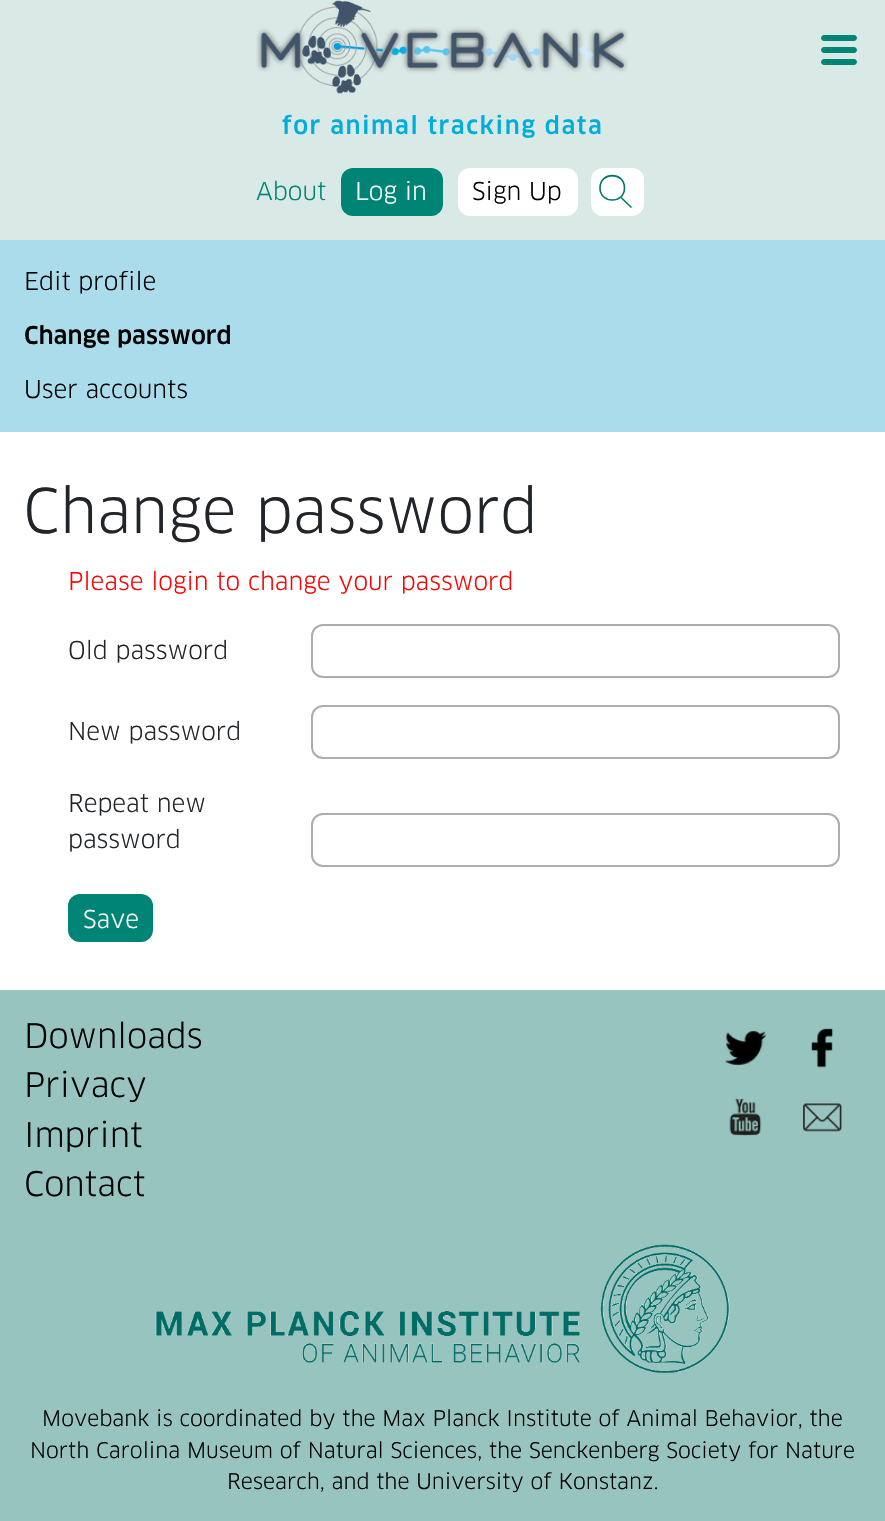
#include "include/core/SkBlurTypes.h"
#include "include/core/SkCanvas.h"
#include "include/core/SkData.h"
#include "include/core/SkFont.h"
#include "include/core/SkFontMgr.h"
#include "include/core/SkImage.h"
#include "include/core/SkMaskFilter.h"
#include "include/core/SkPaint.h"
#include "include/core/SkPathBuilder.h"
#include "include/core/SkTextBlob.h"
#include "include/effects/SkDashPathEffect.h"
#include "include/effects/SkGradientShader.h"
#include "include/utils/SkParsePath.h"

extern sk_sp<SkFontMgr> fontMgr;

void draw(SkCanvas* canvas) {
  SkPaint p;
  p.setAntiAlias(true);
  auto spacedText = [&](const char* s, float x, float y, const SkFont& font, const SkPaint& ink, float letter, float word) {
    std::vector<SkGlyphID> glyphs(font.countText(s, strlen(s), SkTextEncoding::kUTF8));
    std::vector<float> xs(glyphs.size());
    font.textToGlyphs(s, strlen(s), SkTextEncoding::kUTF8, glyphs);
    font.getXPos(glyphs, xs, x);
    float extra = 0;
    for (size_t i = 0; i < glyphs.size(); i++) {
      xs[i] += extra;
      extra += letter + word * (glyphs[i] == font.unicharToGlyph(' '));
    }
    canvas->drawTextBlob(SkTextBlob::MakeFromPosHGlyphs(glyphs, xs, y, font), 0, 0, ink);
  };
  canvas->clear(SK_ColorWHITE);
  p.setColor(SkColorSetRGB(217, 233, 230));
  canvas->drawRect(SkRect::MakeLTRB(0, 0, 885, 240), p);
  p.setColor(SkColorSetRGB(0, 132, 118));
  canvas->drawPath(SkPathBuilder().moveTo(824, 35).lineTo(839, 35).lineTo(839, 41).lineTo(824, 41).cubicTo(822.5f, 41, 821, 39.5f, 821, 38).cubicTo(821, 36.5f, 822.5f, 35, 824, 35).close().detach(), p);
  canvas->drawPath(SkPathBuilder().moveTo(839, 35).lineTo(854, 35).cubicTo(855.5f, 35, 857, 36.5f, 857, 38).cubicTo(857, 39.5f, 855.5f, 41, 854, 41).lineTo(839, 41).close().detach(), p);
  canvas->drawPath(SkPathBuilder().moveTo(824, 47).lineTo(839, 47).lineTo(839, 53).lineTo(824, 53).cubicTo(822.5f, 53, 821, 51.5f, 821, 50).cubicTo(821, 48.5f, 822.5f, 47, 824, 47).close().detach(), p);
  canvas->drawPath(SkPathBuilder().moveTo(839, 47).lineTo(854, 47).cubicTo(855.5f, 47, 857, 48.5f, 857, 50).cubicTo(857, 51.5f, 855.5f, 53, 854, 53).lineTo(839, 53).close().detach(), p);
  canvas->drawPath(SkPathBuilder().moveTo(824, 59).lineTo(839, 59).lineTo(839, 65).lineTo(824, 65).cubicTo(822.5f, 65, 821, 63.5f, 821, 62).cubicTo(821, 60.5f, 822.5f, 59, 824, 59).close().detach(), p);
  canvas->drawPath(SkPathBuilder().moveTo(839, 59).lineTo(854, 59).cubicTo(855.5f, 59, 857, 60.5f, 857, 62).cubicTo(857, 63.5f, 855.5f, 65, 854, 65).lineTo(839, 65).close().detach(), p);
  canvas->drawImageRect(SkImages::DeferredFromEncodedData(SkData::MakeFromFileName("images/1.png")), SkRect::MakeLTRB(256, 0, 628, 94), SkSamplingOptions());
  canvas->drawRoundRect(SkRect::MakeLTRB(341, 168, 443, 216), 12, 12, p);
  p.setColor(SK_ColorWHITE);
  canvas->drawRoundRect(SkRect::MakeLTRB(458, 168, 578, 216), 12, 12, p);
  canvas->drawRoundRect(SkRect::MakeLTRB(591, 168, 644, 216), 12, 12, p);
  canvas->drawRoundRect(SkRect::MakeLTRB(599, 168, 644, 213), 12, 12, p);
  p.setStyle(SkPaint::kStroke_Style);
  p.setStrokeWidth(1.6f);
  p.setStrokeCap(SkPaint::kRound_Cap);
  p.setColor(SkColorSetRGB(0, 120, 105));
  canvas->drawPath(SkPathBuilder().moveTo(624.5f, 188).cubicTo(624.5f, 171.5f, 600, 171.5f, 600, 188).cubicTo(600, 204, 624.5f, 204, 624.5f, 188).close().detach(), p);
  p.setStrokeCap(SkPaint::kButt_Cap);
  canvas->drawPath(SkPathBuilder().moveTo(621, 197.5f).lineTo(631.5f, 207.5f).detach(), p);
  p.setStyle(SkPaint::kFill_Style);
  p.setColor(SkColorSetRGB(171, 220, 236));
  canvas->drawRect(SkRect::MakeLTRB(0, 240, 885, 432), p);
  p.setStyle(SkPaint::kStroke_Style);
  p.setStrokeWidth(2);
  p.setColor(SkColorSetRGB(173, 173, 173));
  canvas->drawRoundRect(SkRect::MakeLTRB(312, 625, 839, 677), 11, 11, p);
  canvas->drawRoundRect(SkRect::MakeLTRB(312, 706, 839, 758), 11, 11, p);
  canvas->drawRoundRect(SkRect::MakeLTRB(312, 814, 839, 866), 11, 11, p);
  p.setStyle(SkPaint::kFill_Style);
  p.setColor(SkColorSetRGB(0, 132, 118));
  canvas->drawRoundRect(SkRect::MakeLTRB(68, 894, 153, 942), 12, 12, p);
  p.setColor(SkColorSetRGB(151, 196, 190));
  canvas->drawRect(SkRect::MakeLTRB(0, 990, 885, 1521), p);
  canvas->drawImageRect(SkImages::DeferredFromEncodedData(SkData::MakeFromFileName("images/2.png")), SkRect::MakeLTRB(725, 1030, 767, 1066), SkSamplingOptions());
  canvas->drawImageRect(SkImages::DeferredFromEncodedData(SkData::MakeFromFileName("images/3.png")), SkRect::MakeLTRB(811, 1028, 834, 1068), SkSamplingOptions());
  canvas->drawImageRect(SkImages::DeferredFromEncodedData(SkData::MakeFromFileName("images/4.png")), SkRect::MakeLTRB(729, 1098, 762, 1136), SkSamplingOptions());
  canvas->drawImageRect(SkImages::DeferredFromEncodedData(SkData::MakeFromFileName("images/5.png")), SkRect::MakeLTRB(803, 1103, 842, 1132), SkSamplingOptions());
  canvas->drawImageRect(SkImages::DeferredFromEncodedData(SkData::MakeFromFileName("images/6.png")), SkRect::MakeLTRB(155, 1244, 730, 1373), SkSamplingOptions());
  SkFont font1(fontMgr->matchFamilyStyle("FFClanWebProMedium", SkFontStyle::Normal()), 24);
  font1.setSubpixel(true);
  p.setColor(SkColorSetRGB(0, 173, 220));
  spacedText("for animal tracking data", 282, 134, font1, p, 1.5f, 0);
  SkFont font2(fontMgr->matchFamilyStyle("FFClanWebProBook", SkFontStyle::Normal()), 24);
  font2.setSubpixel(true);
  p.setColor(SkColorSetRGB(0, 132, 118));
  canvas->drawString("About", 256, 200, font2, p);
  p.setColor(SK_ColorWHITE);
  canvas->drawString("Log in", 355, 200, font2, p);
  p.setColor(SK_ColorBLACK);
  canvas->drawString("Sign Up", 472, 200, font2, p);
  canvas->drawString("Edit profile", 24, 290, font2, p);
  canvas->drawString("Change password", 24, 344, font1, p);
  canvas->drawString("User accounts", 24, 398, font2, p);
  SkFont font3(fontMgr->matchFamilyStyle("FFClanWebProBook", SkFontStyle::Normal()), 60);
  font3.setSubpixel(true);
  p.setColor(SkColorSetRGB(33, 37, 41));
  canvas->drawString("Change password", 23, 533, font3, p);
  p.setColor(SkColorSetRGB(255, 0, 0));
  canvas->drawString("Please login to change your password", 68, 590, font2, p);
  p.setColor(SkColorSetRGB(33, 37, 41));
  canvas->drawString("Old password", 68, 659, font2, p);
  canvas->drawString("New password", 68, 740, font2, p);
  canvas->drawString("Repeat new", 68, 812, font2, p);
  canvas->drawString("password", 68, 848, font2, p);
  p.setColor(SK_ColorWHITE);
  canvas->drawString("Save", 83, 928, font2, p);
  SkFont font4(fontMgr->matchFamilyStyle("FFClanWebProBook", SkFontStyle::Normal()), 33);
  font4.setSubpixel(true);
  p.setColor(SK_ColorBLACK);
  canvas->drawString("Downloads", 24, 1048, font4, p);
  canvas->drawString("Privacy", 24, 1097, font4, p);
  canvas->drawString("Imprint", 24, 1147, font4, p);
  canvas->drawString("Contact", 24, 1196, font4, p);
  SkFont font5(fontMgr->matchFamilyStyle("FFClanWebProBook", SkFontStyle::Normal()), 21);
  font5.setSubpixel(true);
  canvas->drawString("Movebank is coordinated by the Max Planck Institute of Animal Behavior, the", 42, 1426, font5, p);
  canvas->drawString("North Carolina Museum of Natural Sciences, the Senckenberg Society for Nature", 30, 1458, font5, p);
  canvas->drawString("Research, and the University of Konstanz.", 227, 1489, font5, p);
}
